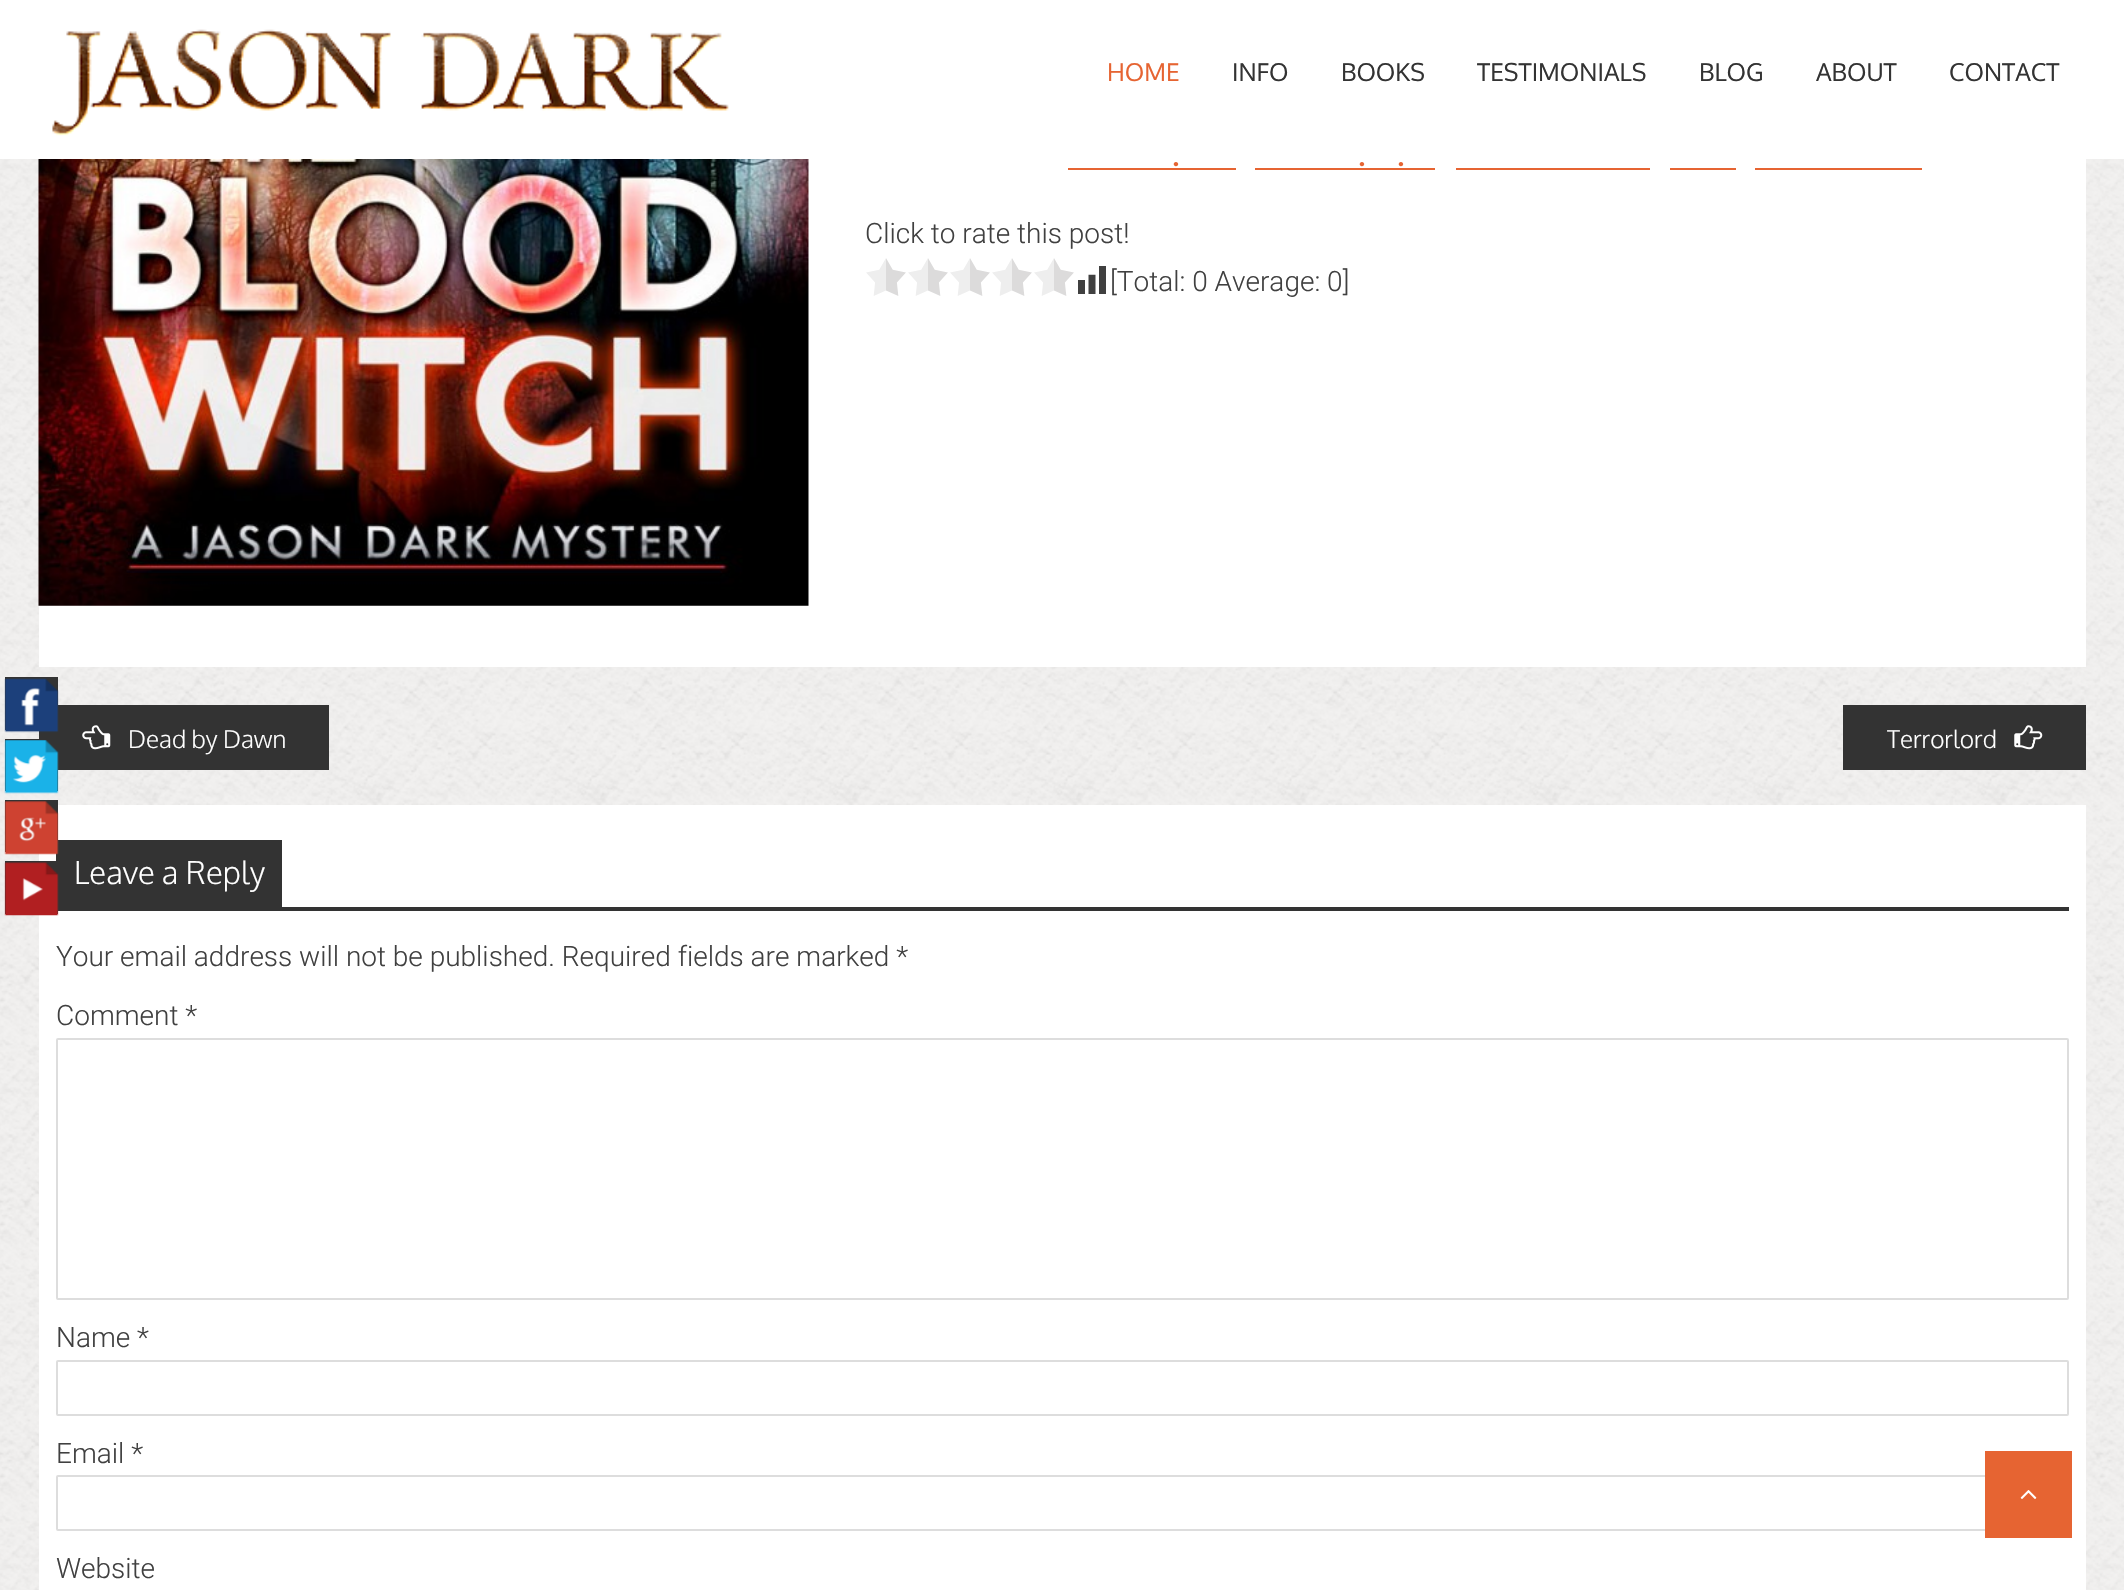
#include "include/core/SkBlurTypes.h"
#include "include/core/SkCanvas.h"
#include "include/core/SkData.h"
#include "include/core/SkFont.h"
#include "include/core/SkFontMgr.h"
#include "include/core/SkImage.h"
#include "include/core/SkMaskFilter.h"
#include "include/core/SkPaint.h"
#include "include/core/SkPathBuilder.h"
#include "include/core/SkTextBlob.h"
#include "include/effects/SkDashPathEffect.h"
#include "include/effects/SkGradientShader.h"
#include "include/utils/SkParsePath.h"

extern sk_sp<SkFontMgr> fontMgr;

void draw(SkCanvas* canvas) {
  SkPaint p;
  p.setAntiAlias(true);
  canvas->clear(SK_ColorWHITE);
  canvas->drawImageRect(SkImages::DeferredFromEncodedData(SkData::MakeFromFileName("images/1.png")), SkRect::MakeLTRB(0, 159, 2124, 1590), SkSamplingOptions());
  canvas->drawImageRect(SkImages::DeferredFromEncodedData(SkData::MakeFromFileName("images/2.png")), SkRect::MakeLTRB(52, 29, 729, 136), SkSamplingOptions());
  p.setColor(SkColorSetRGB(51, 51, 51));
  canvas->drawRect(SkRect::MakeLTRB(39, 705, 329, 770), p);
  canvas->drawRect(SkRect::MakeLTRB(5, 677, 58, 730), p);
  canvas->drawImageRect(SkImages::DeferredFromEncodedData(SkData::MakeFromFileName("images/3.png")), SkRect::MakeLTRB(4, 678, 59, 733), SkSamplingOptions());
  canvas->drawRect(SkRect::MakeLTRB(5, 739, 58, 791), p);
  canvas->drawImageRect(SkImages::DeferredFromEncodedData(SkData::MakeFromFileName("images/4.png")), SkRect::MakeLTRB(4, 740, 59, 794), SkSamplingOptions());
  p.setColor(SK_ColorWHITE);
  canvas->drawRect(SkRect::MakeLTRB(39, 805, 2086, 1590), p);
  p.setColor(SkColorSetRGB(51, 51, 51));
  canvas->drawRect(SkRect::MakeLTRB(56, 840, 282, 907), p);
  canvas->drawRect(SkRect::MakeLTRB(5, 800, 58, 852), p);
  canvas->drawImageRect(SkImages::DeferredFromEncodedData(SkData::MakeFromFileName("images/5.png")), SkRect::MakeLTRB(4, 801, 59, 855), SkSamplingOptions());
  canvas->drawRect(SkRect::MakeLTRB(56, 907, 2069, 911), p);
  canvas->drawRect(SkRect::MakeLTRB(5, 861, 58, 914), p);
  canvas->drawImageRect(SkImages::DeferredFromEncodedData(SkData::MakeFromFileName("images/6.png")), SkRect::MakeLTRB(4, 862, 59, 916), SkSamplingOptions());
  p.setColor(SK_ColorWHITE);
  canvas->drawRect(SkRect::MakeLTRB(39, 159, 2086, 667), p);
  canvas->drawImageRect(SkImages::DeferredFromEncodedData(SkData::MakeFromFileName("images/7.png")), SkRect::MakeLTRB(38, 159, 809, 606), SkSamplingOptions());
  p.setColor(SkColorSetRGB(230, 100, 50));
  canvas->drawRect(SkRect::MakeLTRB(1068, 168, 1236, 170), p);
  canvas->drawRect(SkRect::MakeLTRB(1255, 168, 1435, 170), p);
  canvas->drawRect(SkRect::MakeLTRB(1456, 168, 1650, 170), p);
  canvas->drawRect(SkRect::MakeLTRB(1670, 168, 1736, 170), p);
  canvas->drawRect(SkRect::MakeLTRB(1755, 168, 1922, 170), p);
  canvas->drawImageRect(SkImages::DeferredFromEncodedData(SkData::MakeFromFileName("images/8.png")), SkRect::MakeLTRB(866, 258, 1074, 296), SkSamplingOptions());
  canvas->drawImageRect(SkImages::DeferredFromEncodedData(SkData::MakeFromFileName("images/9.png")), SkRect::MakeLTRB(1078, 266, 1106, 294), SkSamplingOptions());
  canvas->drawImageRect(SkImages::DeferredFromEncodedData(SkData::MakeFromFileName("images/10.png")), SkRect::MakeLTRB(82, 725, 111, 750), SkSamplingOptions());
  p.setColor(SkColorSetRGB(51, 51, 51));
  canvas->drawRect(SkRect::MakeLTRB(1843, 705, 2086, 770), p);
  canvas->drawImageRect(SkImages::DeferredFromEncodedData(SkData::MakeFromFileName("images/11.png")), SkRect::MakeLTRB(2014, 725, 2043, 750), SkSamplingOptions());
  p.setStyle(SkPaint::kStroke_Style);
  p.setStrokeWidth(2);
  p.setColor(SkColorSetRGB(221, 221, 221));
  canvas->drawRoundRect(SkRect::MakeLTRB(57, 1039, 2068, 1299), 1, 1, p);
  canvas->drawRoundRect(SkRect::MakeLTRB(57, 1361, 2068, 1415), 1, 1, p);
  canvas->drawRoundRect(SkRect::MakeLTRB(57, 1476, 2068, 1530), 1, 1, p);
  p.setStyle(SkPaint::kFill_Style);
  p.setColor(SkColorSetRGB(230, 100, 50));
  canvas->drawRect(SkRect::MakeLTRB(1985, 1451, 2072, 1538), p);
  canvas->drawImageRect(SkImages::DeferredFromEncodedData(SkData::MakeFromFileName("images/12.png")), SkRect::MakeLTRB(2020, 1490, 2037, 1499), SkSamplingOptions());
  SkFont font1(fontMgr->matchFamilyStyle("Oxygen", SkFontStyle::Normal()), 24.5f);
  font1.setSubpixel(true);
  canvas->drawString("HOME", 1107, 81, font1, p);
  p.setColor(SkColorSetRGB(51, 51, 51));
  canvas->drawString("INFO", 1232, 81, font1, p);
  canvas->drawString("BOOKS", 1341, 81, font1, p);
  canvas->drawString("TESTIMONIALS", 1477, 81, font1, p);
  canvas->drawString("BLOG", 1699, 81, font1, p);
  canvas->drawString("ABOUT", 1816, 81, font1, p);
  canvas->drawString("CONTACT", 1949, 81, font1, p);
  SkFont font2(fontMgr->matchFamilyStyle("Roboto", SkFontStyle::Bold()), 28);
  font2.setSubpixel(true);
  p.setColor(SkColorSetRGB(230, 100, 50));
  canvas->drawString(".", 1172, 166, font2, p);
  canvas->drawString(".", 1358, 166, font2, p);
  canvas->drawString(".", 1397, 166, font2, p);
  SkFont font3(fontMgr->matchFamilyStyle("Roboto", SkFontStyle(300, SkFontStyle::kNormal_Width, SkFontStyle::kUpright_Slant)), 28);
  font3.setSubpixel(true);
  p.setColor(SkColorSetRGB(64, 64, 64));
  canvas->drawString("Click to rate this post!", 865, 243, font3, p);
  canvas->drawString("[Total: 0 Average: 0]", 1110, 291, font3, p);
  SkFont font4(fontMgr->matchFamilyStyle("Oxygen", SkFontStyle(300, SkFontStyle::kNormal_Width, SkFontStyle::kUpright_Slant)), 24.5f);
  font4.setSubpixel(true);
  p.setColor(SK_ColorWHITE);
  canvas->drawString("Dead by Dawn", 128, 748, font4, p);
  canvas->drawString("Terrorlord", 1887, 748, font4, p);
  SkFont font5(fontMgr->matchFamilyStyle("Oxygen", SkFontStyle(300, SkFontStyle::kNormal_Width, SkFontStyle::kUpright_Slant)), 31.5f);
  font5.setSubpixel(true);
  canvas->drawString("Leave a Reply", 74, 884, font5, p);
  p.setColor(SkColorSetRGB(64, 64, 64));
  canvas->drawString("Your email address will not be published. Required fields are marked *", 56, 966, font3, p);
  canvas->drawString("Comment *", 56, 1025, font3, p);
  canvas->drawString("Name *", 56, 1347, font3, p);
  canvas->drawString("Email *", 56, 1463, font3, p);
  canvas->drawString("Website", 56, 1578, font3, p);
}
